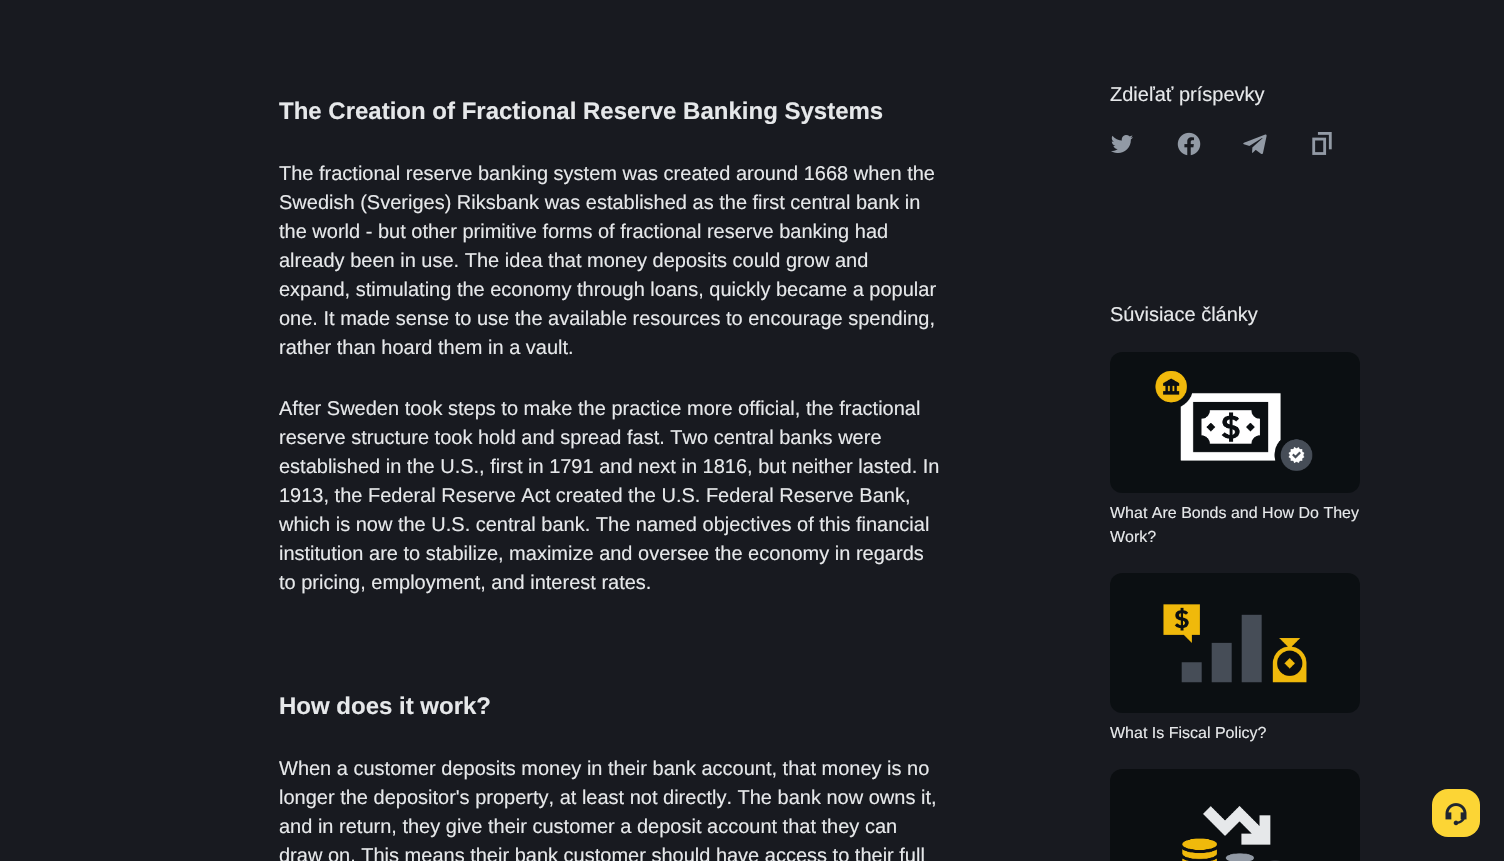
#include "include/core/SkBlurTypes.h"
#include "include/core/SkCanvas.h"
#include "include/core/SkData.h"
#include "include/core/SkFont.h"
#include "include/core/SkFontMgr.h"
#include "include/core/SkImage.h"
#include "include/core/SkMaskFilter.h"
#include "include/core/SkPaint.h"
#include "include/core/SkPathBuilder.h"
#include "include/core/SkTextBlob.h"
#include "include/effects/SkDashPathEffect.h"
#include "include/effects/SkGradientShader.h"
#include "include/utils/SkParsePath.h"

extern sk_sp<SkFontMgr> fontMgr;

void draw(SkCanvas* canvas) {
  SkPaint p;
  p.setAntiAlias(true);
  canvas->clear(SkColorSetRGB(24, 26, 32));
  canvas->drawImageRect(SkImages::DeferredFromEncodedData(SkData::MakeFromFileName("images/1.png")), SkRect::MakeLTRB(1111, 135, 1133, 153), SkSamplingOptions());
  canvas->drawImageRect(SkImages::DeferredFromEncodedData(SkData::MakeFromFileName("images/2.png")), SkRect::MakeLTRB(1177, 132, 1201, 156), SkSamplingOptions());
  canvas->drawImageRect(SkImages::DeferredFromEncodedData(SkData::MakeFromFileName("images/3.png")), SkRect::MakeLTRB(1243, 134, 1267, 154), SkSamplingOptions());
  canvas->drawImageRect(SkImages::DeferredFromEncodedData(SkData::MakeFromFileName("images/4.png")), SkRect::MakeLTRB(1312, 132, 1332, 155), SkSamplingOptions());
  canvas->drawImageRect(SkImages::DeferredFromEncodedData(SkData::MakeFromFileName("images/5.png")), SkRect::MakeLTRB(1110, 352, 1360, 493), SkSamplingOptions());
  canvas->drawImageRect(SkImages::DeferredFromEncodedData(SkData::MakeFromFileName("images/6.png")), SkRect::MakeLTRB(1110, 573, 1360, 713), SkSamplingOptions());
  canvas->drawImageRect(SkImages::DeferredFromEncodedData(SkData::MakeFromFileName("images/7.png")), SkRect::MakeLTRB(1110, 769, 1360, 861), SkSamplingOptions());
  p.setColor(SkColorSetRGB(252, 213, 53));
  canvas->drawRoundRect(SkRect::MakeLTRB(1432, 789, 1480, 837), 16, 16, p);
  canvas->drawImageRect(SkImages::DeferredFromEncodedData(SkData::MakeFromFileName("images/8.png")), SkRect::MakeLTRB(1445, 803, 1467, 826), SkSamplingOptions());
  SkFont font1(fontMgr->matchFamilyStyle("Liberation Sans", SkFontStyle::Bold()), 24);
  font1.setSubpixel(true);
  p.setColor(SkColorSetRGB(230, 232, 234));
  canvas->drawString("The Creation of Fractional Reserve Banking Systems", 279, 119, font1, p);
  SkFont font2(fontMgr->matchFamilyStyle("Liberation Sans", SkFontStyle::Normal()), 20);
  font2.setSubpixel(true);
  canvas->drawString("The fractional reserve banking system was created around 1668 when the", 279, 180, font2, p);
  canvas->drawString("Swedish (Sveriges) Riksbank was established as the first central bank in", 279, 209, font2, p);
  canvas->drawString("the world - but other primitive forms of fractional reserve banking had", 279, 238, font2, p);
  canvas->drawString("already been in use. The idea that money deposits could grow and", 279, 267, font2, p);
  canvas->drawString("expand, stimulating the economy through loans, quickly became a popular", 279, 296, font2, p);
  canvas->drawString("one. It made sense to use the available resources to encourage spending,", 279, 325, font2, p);
  canvas->drawString("rather than hoard them in a vault.", 279, 354, font2, p);
  canvas->drawString("After Sweden took steps to make the practice more official, the fractional", 279, 415, font2, p);
  canvas->drawString("reserve structure took hold and spread fast. Two central banks were", 279, 444, font2, p);
  canvas->drawString("established in the U.S., first in 1791 and next in 1816, but neither lasted. In", 279, 473, font2, p);
  canvas->drawString("1913, the Federal Reserve Act created the U.S. Federal Reserve Bank,", 279, 502, font2, p);
  canvas->drawString("which is now the U.S. central bank. The named objectives of this financial", 279, 531, font2, p);
  canvas->drawString("institution are to stabilize, maximize and oversee the economy in regards", 279, 560, font2, p);
  canvas->drawString("to pricing, employment, and interest rates.", 279, 589, font2, p);
  canvas->drawString("How does it work?", 279, 714, font1, p);
  canvas->drawString("When a customer deposits money in their bank account, that money is no", 279, 775, font2, p);
  canvas->drawString("longer the depositor's property, at least not directly. The bank now owns it,", 279, 804, font2, p);
  canvas->drawString("and in return, they give their customer a deposit account that they can", 279, 833, font2, p);
  canvas->drawString("draw on. This means their bank customer should have access to their full", 279, 862, font2, p);
  canvas->drawString("Zdieľať príspevky", 1110, 101, font2, p);
  canvas->drawString("Súvisiace články", 1110, 321, font2, p);
  SkFont font3(fontMgr->matchFamilyStyle("Liberation Sans", SkFontStyle::Normal()), 16);
  font3.setSubpixel(true);
  canvas->drawString("What Are Bonds and How Do They", 1110, 518, font3, p);
  canvas->drawString("Work?", 1110, 542, font3, p);
  canvas->drawString("What Is Fiscal Policy?", 1110, 738, font3, p);
}
